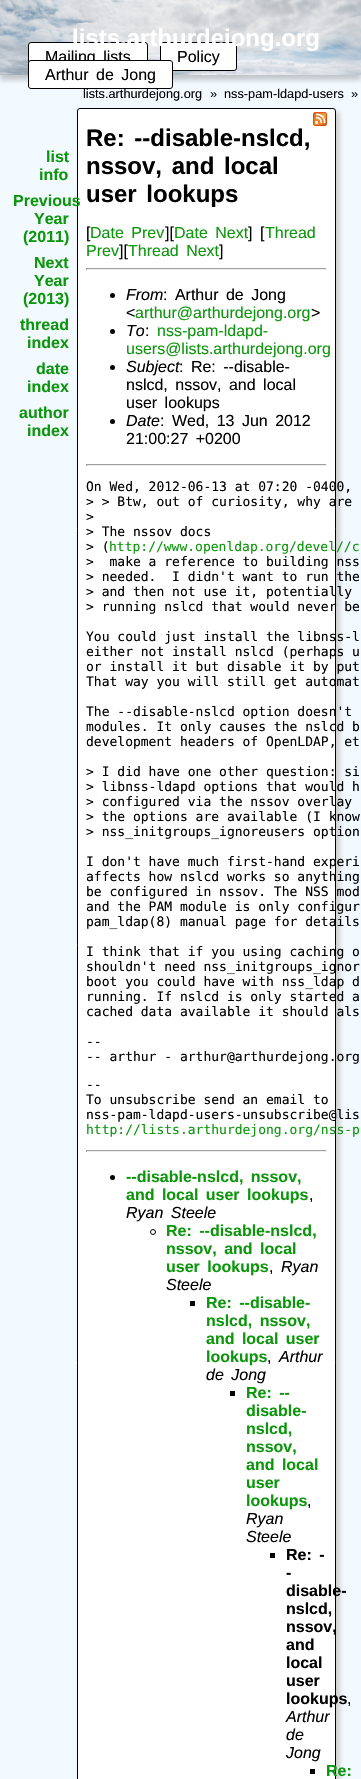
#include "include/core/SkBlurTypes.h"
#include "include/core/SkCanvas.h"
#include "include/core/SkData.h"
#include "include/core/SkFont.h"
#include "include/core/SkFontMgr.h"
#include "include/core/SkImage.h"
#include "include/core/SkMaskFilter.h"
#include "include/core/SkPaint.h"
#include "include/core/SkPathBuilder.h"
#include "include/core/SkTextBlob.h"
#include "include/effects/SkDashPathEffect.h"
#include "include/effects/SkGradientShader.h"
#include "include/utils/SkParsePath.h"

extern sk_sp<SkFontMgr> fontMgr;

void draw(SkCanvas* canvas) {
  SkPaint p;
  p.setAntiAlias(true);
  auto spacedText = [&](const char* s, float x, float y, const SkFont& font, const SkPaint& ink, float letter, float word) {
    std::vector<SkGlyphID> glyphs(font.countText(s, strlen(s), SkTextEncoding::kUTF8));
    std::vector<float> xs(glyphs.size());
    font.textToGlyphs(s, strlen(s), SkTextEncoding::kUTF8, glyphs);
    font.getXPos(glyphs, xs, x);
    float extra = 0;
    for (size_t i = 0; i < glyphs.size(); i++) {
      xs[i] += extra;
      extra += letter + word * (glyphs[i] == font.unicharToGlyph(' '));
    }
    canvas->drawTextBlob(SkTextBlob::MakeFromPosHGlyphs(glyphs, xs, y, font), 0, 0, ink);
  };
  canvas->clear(SkColorSetRGB(242, 249, 255));
  p.setColor(SkColorSetRGB(194, 199, 204));
  p.setMaskFilter(SkMaskFilter::MakeBlur(kNormal_SkBlurStyle, 2.5f));
  canvas->drawRect(SkRect::MakeLTRB(0, 5, 361, 80), p);
  p.setMaskFilter(nullptr);
  canvas->drawImageRect(SkImages::DeferredFromEncodedData(SkData::MakeFromFileName("images/1.png")), SkRect::MakeLTRB(0, 0, 361, 75), SkSamplingOptions());
  p.setColor(SK_ColorWHITE);
  canvas->drawRoundRect(SkRect::MakeLTRB(28.5f, 42.5f, 147.5f, 70.5f), 2.5f, 2.5f, p);
  p.setStyle(SkPaint::kStroke_Style);
  p.setStrokeWidth(1);
  p.setColor(SK_ColorBLACK);
  canvas->drawRoundRect(SkRect::MakeLTRB(28.5f, 42.5f, 147.5f, 70.5f), 2.5f, 2.5f, p);
  p.setStyle(SkPaint::kFill_Style);
  p.setColor(SK_ColorWHITE);
  canvas->drawRoundRect(SkRect::MakeLTRB(160.5f, 42.5f, 236.5f, 70.5f), 2.5f, 2.5f, p);
  p.setStyle(SkPaint::kStroke_Style);
  p.setColor(SK_ColorBLACK);
  canvas->drawRoundRect(SkRect::MakeLTRB(160.5f, 42.5f, 236.5f, 70.5f), 2.5f, 2.5f, p);
  p.setStyle(SkPaint::kFill_Style);
  p.setColor(SkColorSetRGB(208, 208, 208));
  p.setMaskFilter(SkMaskFilter::MakeBlur(kNormal_SkBlurStyle, 2));
  canvas->drawRoundRect(SkRect::MakeLTRB(81, 112, 340, 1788), 3, 3, p);
  p.setMaskFilter(nullptr);
  p.setColor(SK_ColorWHITE);
  canvas->drawRoundRect(SkRect::MakeLTRB(77.5f, 108.5f, 335.5f, 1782.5f), 2.5f, 2.5f, p);
  p.setStyle(SkPaint::kStroke_Style);
  p.setColor(SK_ColorBLACK);
  canvas->drawRoundRect(SkRect::MakeLTRB(77.5f, 108.5f, 335.5f, 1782.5f), 2.5f, 2.5f, p);
  canvas->drawImageRect(SkImages::DeferredFromEncodedData(SkData::MakeFromFileName("images/2.png")), SkRect::MakeLTRB(313, 112, 327, 126), SkSamplingOptions());
  p.setStyle(SkPaint::kFill_Style);
  p.setColor(SkColorSetRGB(159, 159, 159));
  canvas->drawRect(SkRect::MakeLTRB(86, 268, 327, 269), p);
  p.setColor(SkColorSetRGB(238, 238, 238));
  canvas->drawRect(SkRect::MakeLTRB(326, 268, 327, 270), p);
  canvas->drawRect(SkRect::MakeLTRB(86, 269, 327, 270), p);
  p.setColor(SkColorSetRGB(159, 159, 159));
  canvas->drawRect(SkRect::MakeLTRB(86, 268, 87, 270), p);
  p.setColor(SK_ColorBLACK);
  canvas->drawCircle(112.5f, 295.5f, 2.5f, p);
  canvas->drawCircle(112.5f, 331.5f, 2.5f, p);
  canvas->drawCircle(112.5f, 367.5f, 2.5f, p);
  canvas->drawCircle(112.5f, 421.5f, 2.5f, p);
  p.setColor(SkColorSetRGB(159, 159, 159));
  canvas->drawRect(SkRect::MakeLTRB(86, 464, 327, 465), p);
  p.setColor(SkColorSetRGB(238, 238, 238));
  canvas->drawRect(SkRect::MakeLTRB(326, 464, 327, 466), p);
  canvas->drawRect(SkRect::MakeLTRB(86, 465, 327, 466), p);
  p.setColor(SkColorSetRGB(159, 159, 159));
  canvas->drawRect(SkRect::MakeLTRB(86, 464, 87, 466), p);
  canvas->drawRect(SkRect::MakeLTRB(86, 1150, 327, 1151), p);
  p.setColor(SkColorSetRGB(238, 238, 238));
  canvas->drawRect(SkRect::MakeLTRB(326, 1150, 327, 1152), p);
  canvas->drawRect(SkRect::MakeLTRB(86, 1151, 327, 1152), p);
  p.setColor(SkColorSetRGB(159, 159, 159));
  canvas->drawRect(SkRect::MakeLTRB(86, 1150, 87, 1152), p);
  p.setColor(SK_ColorBLACK);
  canvas->drawCircle(112.5f, 1177.5f, 2.5f, p);
  p.setStyle(SkPaint::kStroke_Style);
  canvas->drawCircle(153, 1232, 2.5f, p);
  p.setStyle(SkPaint::kFill_Style);
  canvas->drawRect(SkRect::MakeLTRB(190, 1301, 195, 1306), p);
  canvas->drawRect(SkRect::MakeLTRB(230, 1391, 235, 1396), p);
  canvas->drawRect(SkRect::MakeLTRB(270, 1553, 275, 1558), p);
  canvas->drawRect(SkRect::MakeLTRB(310, 1769, 315, 1774), p);
  SkFont font1(fontMgr->matchFamilyStyle("Liberation Sans", SkFontStyle::Bold()), 24);
  font1.setSubpixel(true);
  p.setColor(SK_ColorWHITE);
  canvas->drawString("lists.arthurdejong.org", 72, 46, font1, p);
  SkFont font2(fontMgr->matchFamilyStyle("Liberation Sans", SkFontStyle::Normal()), 16);
  font2.setSubpixel(true);
  p.setColor(SK_ColorBLACK);
  spacedText("Mailing lists", 45, 62, font2, p, 0, 3);
  canvas->drawString("Policy", 177, 62, font2, p);
  p.setColor(SK_ColorWHITE);
  canvas->drawRoundRect(SkRect::MakeLTRB(28.5f, 60.5f, 172.5f, 88.5f), 2.5f, 2.5f, p);
  p.setStyle(SkPaint::kStroke_Style);
  p.setColor(SK_ColorBLACK);
  canvas->drawRoundRect(SkRect::MakeLTRB(28.5f, 60.5f, 172.5f, 88.5f), 2.5f, 2.5f, p);
  p.setStyle(SkPaint::kFill_Style);
  spacedText("Arthur de Jong", 45, 80, font2, p, 0, 3);
  SkFont font3(fontMgr->matchFamilyStyle("Liberation Sans", SkFontStyle::Normal()), 12.75f);
  font3.setSubpixel(true);
  canvas->drawString("lists.arthurdejong.org", 83, 98, font3, p);
  canvas->drawString("»", 210, 98, font3, p);
  canvas->drawString("nss-pam-ldapd-users", 224, 98, font3, p);
  canvas->drawString("»", 351, 98, font3, p);
  SkFont font4(fontMgr->matchFamilyStyle("Liberation Sans", SkFontStyle::Bold()), 16);
  font4.setSubpixel(true);
  p.setColor(SkColorSetRGB(11, 150, 11));
  canvas->drawString("list", 46, 162, font4, p);
  canvas->drawString("info", 39, 180, font4, p);
  canvas->drawString("Previous", 13, 206, font4, p);
  canvas->drawString("Year", 34, 224, font4, p);
  canvas->drawString("(2011)", 23, 242, font4, p);
  canvas->drawString("Next", 34, 268, font4, p);
  canvas->drawString("Year", 34, 286, font4, p);
  canvas->drawString("(2013)", 23, 304, font4, p);
  canvas->drawString("thread", 20, 330, font4, p);
  canvas->drawString("index", 27, 348, font4, p);
  canvas->drawString("date", 36, 374, font4, p);
  canvas->drawString("index", 27, 392, font4, p);
  canvas->drawString("author", 19, 418, font4, p);
  canvas->drawString("index", 27, 436, font4, p);
  p.setColor(SK_ColorBLACK);
  spacedText("Re: --disable-nslcd,", 86, 146, font1, p, 0, 3);
  spacedText("nssov, and local", 86, 174, font1, p, 0, 3);
  spacedText("user lookups", 86, 202, font1, p, 0, 3);
  canvas->drawString("[", 86, 238, font2, p);
  p.setColor(SkColorSetRGB(11, 150, 11));
  spacedText("Date Prev", 90, 238, font2, p, 0, 3);
  p.setColor(SK_ColorBLACK);
  canvas->drawString("][", 165, 238, font2, p);
  p.setColor(SkColorSetRGB(11, 150, 11));
  spacedText("Date Next", 174, 238, font2, p, 0, 3);
  p.setColor(SK_ColorBLACK);
  spacedText("] [", 248, 238, font2, p, 0, 3);
  p.setColor(SkColorSetRGB(11, 150, 11));
  canvas->drawString("Thread", 265, 238, font2, p);
  canvas->drawString("Prev", 86, 256, font2, p);
  p.setColor(SK_ColorBLACK);
  canvas->drawString("][", 119, 256, font2, p);
  p.setColor(SkColorSetRGB(11, 150, 11));
  spacedText("Thread Next", 128, 256, font2, p, 0, 3);
  p.setColor(SK_ColorBLACK);
  canvas->drawString("]", 219, 256, font2, p);
  SkFont font5(fontMgr->matchFamilyStyle("Liberation Sans", SkFontStyle::Italic()), 16);
  font5.setSubpixel(true);
  canvas->drawString("From", 126, 300, font5, p);
  spacedText(": Arthur de Jong", 163, 300, font2, p, 0, 3);
  canvas->drawString("<", 126, 318, font2, p);
  p.setColor(SkColorSetRGB(11, 150, 11));
  canvas->drawString("arthur@arthurdejong.org", 135, 318, font2, p);
  p.setColor(SK_ColorBLACK);
  canvas->drawString(">", 311, 318, font2, p);
  canvas->drawString("To", 126, 336, font5, p);
  canvas->drawString(":", 145, 336, font2, p);
  p.setColor(SkColorSetRGB(11, 150, 11));
  canvas->drawString("nss-pam-ldapd-", 157, 336, font2, p);
  canvas->drawString("users@lists.arthurdejong.org", 126, 354, font2, p);
  p.setColor(SK_ColorBLACK);
  canvas->drawString("Subject", 126, 372, font5, p);
  spacedText(": Re: --disable-", 179, 372, font2, p, 0, 3);
  spacedText("nslcd, nssov, and local", 126, 390, font2, p, 0, 3);
  spacedText("user lookups", 126, 408, font2, p, 0, 3);
  canvas->drawString("Date", 126, 426, font5, p);
  spacedText(": Wed, 13 Jun 2012", 160, 426, font2, p, 0, 3);
  spacedText("21:00:27 +0200", 126, 444, font2, p, 0, 3);
  SkFont font6(fontMgr->matchFamilyStyle("DejaVu Sans Mono", SkFontStyle::Normal()), 13);
  font6.setSubpixel(true);
  canvas->drawString("On Wed, 2012-06-13 at 07:20 -0400,", 86, 491, font6, p);
  canvas->drawString("> > Btw, out of curiosity, why are", 86, 506, font6, p);
  canvas->drawString(">", 86, 521, font6, p);
  canvas->drawString("> The nssov docs", 86, 536, font6, p);
  canvas->drawString("> (", 86, 551, font6, p);
  p.setColor(SkColorSetRGB(11, 150, 11));
  canvas->drawString("http://www.openldap.org/devel//c", 109, 551, font6, p);
  p.setColor(SK_ColorBLACK);
  canvas->drawString(">  make a reference to building nss", 86, 566, font6, p);
  canvas->drawString("> needed.  I didn't want to run the", 86, 581, font6, p);
  canvas->drawString("> and then not use it, potentially", 86, 596, font6, p);
  canvas->drawString("> running nslcd that would never be", 86, 611, font6, p);
  canvas->drawString("You could just install the libnss-l", 86, 641, font6, p);
  canvas->drawString("either not install nslcd (perhaps u", 86, 656, font6, p);
  canvas->drawString("or install it but disable it by put", 86, 671, font6, p);
  canvas->drawString("That way you will still get automat", 86, 686, font6, p);
  canvas->drawString("The --disable-nslcd option doesn't", 86, 716, font6, p);
  canvas->drawString("modules. It only causes the nslcd b", 86, 731, font6, p);
  canvas->drawString("development headers of OpenLDAP, et", 86, 746, font6, p);
  canvas->drawString("> I did have one other question: si", 86, 776, font6, p);
  canvas->drawString("> libnss-ldapd options that would h", 86, 791, font6, p);
  canvas->drawString("> configured via the nssov overlay", 86, 806, font6, p);
  canvas->drawString("> the options are available (I know", 86, 821, font6, p);
  canvas->drawString("> nss_initgroups_ignoreusers option", 86, 836, font6, p);
  canvas->drawString("I don't have much first-hand experi", 86, 866, font6, p);
  canvas->drawString("affects how nslcd works so anything", 86, 881, font6, p);
  canvas->drawString("be configured in nssov. The NSS mod", 86, 896, font6, p);
  canvas->drawString("and the PAM module is only configur", 86, 911, font6, p);
  canvas->drawString("pam_ldap(8) manual page for details", 86, 926, font6, p);
  canvas->drawString("I think that if you using caching o", 86, 956, font6, p);
  canvas->drawString("shouldn't need nss_initgroups_ignor", 86, 971, font6, p);
  canvas->drawString("boot you could have with nss_ldap d", 86, 986, font6, p);
  canvas->drawString("running. If nslcd is only started a", 86, 1001, font6, p);
  canvas->drawString("cached data available it should als", 86, 1016, font6, p);
  canvas->drawString("--", 86, 1046, font6, p);
  canvas->drawString("-- arthur - arthur@arthurdejong.org", 86, 1061, font6, p);
  canvas->drawString("--", 86, 1089, font6, p);
  canvas->drawString("To unsubscribe send an email to", 86, 1104, font6, p);
  canvas->drawString("nss-pam-ldapd-users-unsubscribe@lis", 86, 1119, font6, p);
  p.setColor(SkColorSetRGB(11, 150, 11));
  canvas->drawString("http://lists.arthurdejong.org/nss-p", 86, 1134, font6, p);
  spacedText("--disable-nslcd, nssov,", 126, 1182, font4, p, 0, 3);
  spacedText("and local user lookups", 126, 1200, font4, p, 0, 3);
  p.setColor(SK_ColorBLACK);
  canvas->drawString(",", 309, 1200, font2, p);
  spacedText("Ryan Steele", 126, 1218, font5, p, 0, 3);
  p.setColor(SkColorSetRGB(11, 150, 11));
  spacedText("Re: --disable-nslcd,", 166, 1236, font4, p, 0, 3);
  spacedText("nssov, and local", 166, 1254, font4, p, 0, 3);
  spacedText("user lookups", 166, 1272, font4, p, 0, 3);
  p.setColor(SK_ColorBLACK);
  canvas->drawString(",", 269, 1272, font2, p);
  canvas->drawString("Ryan", 281, 1272, font5, p);
  canvas->drawString("Steele", 166, 1290, font5, p);
  p.setColor(SkColorSetRGB(11, 150, 11));
  spacedText("Re: --disable-", 206, 1308, font4, p, 0, 3);
  spacedText("nslcd, nssov,", 206, 1326, font4, p, 0, 3);
  spacedText("and local user", 206, 1344, font4, p, 0, 3);
  canvas->drawString("lookups", 206, 1362, font4, p);
  p.setColor(SK_ColorBLACK);
  canvas->drawString(",", 267, 1362, font2, p);
  canvas->drawString("Arthur", 279, 1362, font5, p);
  spacedText("de Jong", 206, 1380, font5, p, 0, 3);
  p.setColor(SkColorSetRGB(11, 150, 11));
  spacedText("Re: --", 246, 1398, font4, p, 0, 3);
  canvas->drawString("disable-", 246, 1416, font4, p);
  canvas->drawString("nslcd,", 246, 1434, font4, p);
  canvas->drawString("nssov,", 246, 1452, font4, p);
  spacedText("and local", 246, 1470, font4, p, 0, 3);
  canvas->drawString("user", 246, 1488, font4, p);
  canvas->drawString("lookups", 246, 1506, font4, p);
  p.setColor(SK_ColorBLACK);
  canvas->drawString(",", 307, 1506, font2, p);
  canvas->drawString("Ryan", 246, 1524, font5, p);
  canvas->drawString("Steele", 246, 1542, font5, p);
  spacedText("Re: -", 286, 1560, font4, p, 0, 3);
  canvas->drawString("-", 286, 1578, font4, p);
  canvas->drawString("disable-", 286, 1596, font4, p);
  canvas->drawString("nslcd,", 286, 1614, font4, p);
  canvas->drawString("nssov,", 286, 1632, font4, p);
  canvas->drawString("and", 286, 1650, font4, p);
  canvas->drawString("local", 286, 1668, font4, p);
  canvas->drawString("user", 286, 1686, font4, p);
  canvas->drawString("lookups", 286, 1704, font4, p);
  canvas->drawString(",", 347, 1704, font2, p);
  canvas->drawString("Arthur", 286, 1722, font5, p);
  canvas->drawString("de", 286, 1740, font5, p);
  canvas->drawString("Jong", 286, 1758, font5, p);
  p.setColor(SkColorSetRGB(11, 150, 11));
  canvas->drawString("Re:", 326, 1776, font4, p);
}
